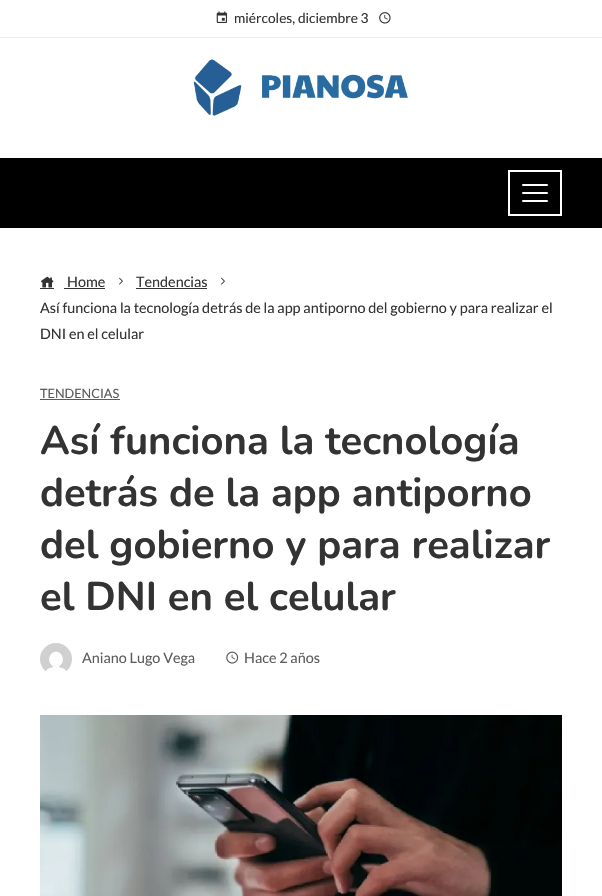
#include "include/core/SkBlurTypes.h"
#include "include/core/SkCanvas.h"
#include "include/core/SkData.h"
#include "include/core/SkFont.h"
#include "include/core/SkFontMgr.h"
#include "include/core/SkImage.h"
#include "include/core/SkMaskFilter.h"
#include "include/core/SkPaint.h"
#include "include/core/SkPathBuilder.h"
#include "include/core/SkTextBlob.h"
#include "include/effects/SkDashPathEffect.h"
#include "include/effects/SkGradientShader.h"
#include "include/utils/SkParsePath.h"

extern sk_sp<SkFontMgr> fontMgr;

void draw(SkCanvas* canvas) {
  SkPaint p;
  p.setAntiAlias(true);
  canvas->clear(SK_ColorWHITE);
  p.setColor(SkColorSetRGB(237, 237, 237));
  canvas->drawRect(SkRect::MakeLTRB(0, 37, 602, 38), p);
  canvas->drawImageRect(SkImages::DeferredFromEncodedData(SkData::MakeFromFileName("images/1.png")), SkRect::MakeLTRB(216, 11, 228, 23), SkSamplingOptions());
  canvas->drawImageRect(SkImages::DeferredFromEncodedData(SkData::MakeFromFileName("images/2.png")), SkRect::MakeLTRB(379, 12, 391, 24), SkSamplingOptions());
  canvas->drawImageRect(SkImages::DeferredFromEncodedData(SkData::MakeFromFileName("images/3.png")), SkRect::MakeLTRB(193, 59, 408, 116), SkSamplingOptions());
  p.setColor(SK_ColorBLACK);
  canvas->drawRect(SkRect::MakeLTRB(0, 158, 602, 228), p);
  p.setStyle(SkPaint::kStroke_Style);
  p.setStrokeWidth(2);
  p.setColor(SK_ColorWHITE);
  canvas->drawRect(SkRect::MakeLTRB(509, 171, 561, 215), p);
  p.setStyle(SkPaint::kFill_Style);
  canvas->drawRoundRect(SkRect::MakeLTRB(522, 184, 548, 186), 1, 1, p);
  canvas->drawRoundRect(SkRect::MakeLTRB(522, 192, 548, 194), 1, 1, p);
  canvas->drawRoundRect(SkRect::MakeLTRB(522, 200, 548, 202), 1, 1, p);
  canvas->drawImageRect(SkImages::DeferredFromEncodedData(SkData::MakeFromFileName("images/4.png")), SkRect::MakeLTRB(41, 276, 54, 288), SkSamplingOptions());
  p.setColor(SkColorSetRGB(51, 51, 51));
  canvas->drawRect(SkRect::MakeLTRB(40, 288, 54, 289), p);
  canvas->drawRect(SkRect::MakeLTRB(64, 288, 105, 289), p);
  canvas->drawImageRect(SkImages::DeferredFromEncodedData(SkData::MakeFromFileName("images/5.png")), SkRect::MakeLTRB(119, 277, 123, 285), SkSamplingOptions());
  canvas->drawRect(SkRect::MakeLTRB(136, 288, 207, 289), p);
  canvas->drawImageRect(SkImages::DeferredFromEncodedData(SkData::MakeFromFileName("images/5.png")), SkRect::MakeLTRB(221, 277, 225, 285), SkSamplingOptions());
  p.setColor(SkColorSetRGB(92, 92, 92));
  canvas->drawRect(SkRect::MakeLTRB(40, 399, 120, 400), p);
  canvas->drawImageRect(SkImages::DeferredFromEncodedData(SkData::MakeFromFileName("images/6.png")), SkRect::MakeLTRB(40, 643, 72, 672), SkSamplingOptions());
  canvas->drawImageRect(SkImages::DeferredFromEncodedData(SkData::MakeFromFileName("images/7.png")), SkRect::MakeLTRB(226, 651, 239, 664), SkSamplingOptions());
  canvas->drawImageRect(SkImages::DeferredFromEncodedData(SkData::MakeFromFileName("images/8.png")), SkRect::MakeLTRB(40, 715, 562, 896), SkSamplingOptions());
  SkFont font1(fontMgr->matchFamilyStyle("Lato", SkFontStyle::Normal()), 13.75f);
  font1.setSubpixel(true);
  p.setColor(SkColorSetRGB(51, 51, 51));
  canvas->drawString("miércoles, diciembre 3", 234, 23, font1, p);
  SkFont font2(fontMgr->matchFamilyStyle("Lato", SkFontStyle::Normal()), 14.4f);
  font2.setSubpixel(true);
  canvas->drawString("Home", 67, 287, font2, p);
  canvas->drawString("Tendencias", 136, 287, font2, p);
  canvas->drawString("Así funciona la tecnología detrás de la app antiporno del gobierno y para realizar el", 40, 313, font2, p);
  canvas->drawString("DNI en el celular", 40, 339, font2, p);
  SkFont font3(fontMgr->matchFamilyStyle("Lato", SkFontStyle::Normal()), 12.75f);
  font3.setSubpixel(true);
  p.setColor(SkColorSetRGB(92, 92, 92));
  canvas->drawString("TENDENCIAS", 40, 398, font3, p);
  SkFont font4(fontMgr->matchFamilyStyle("Nunito", SkFontStyle::Bold()), 40);
  font4.setSubpixel(true);
  p.setColor(SkColorSetRGB(51, 51, 51));
  canvas->drawString("Así funciona la tecnología", 40, 454, font4, p);
  canvas->drawString("detrás de la app antiporno", 40, 506, font4, p);
  canvas->drawString("del gobierno y para realizar", 40, 558, font4, p);
  canvas->drawString("el DNI en el celular", 40, 610, font4, p);
  p.setColor(SkColorSetRGB(92, 92, 92));
  canvas->drawString("Aniano Lugo Vega", 82, 663, font2, p);
  canvas->drawString("Hace 2 años", 244, 663, font2, p);
}
